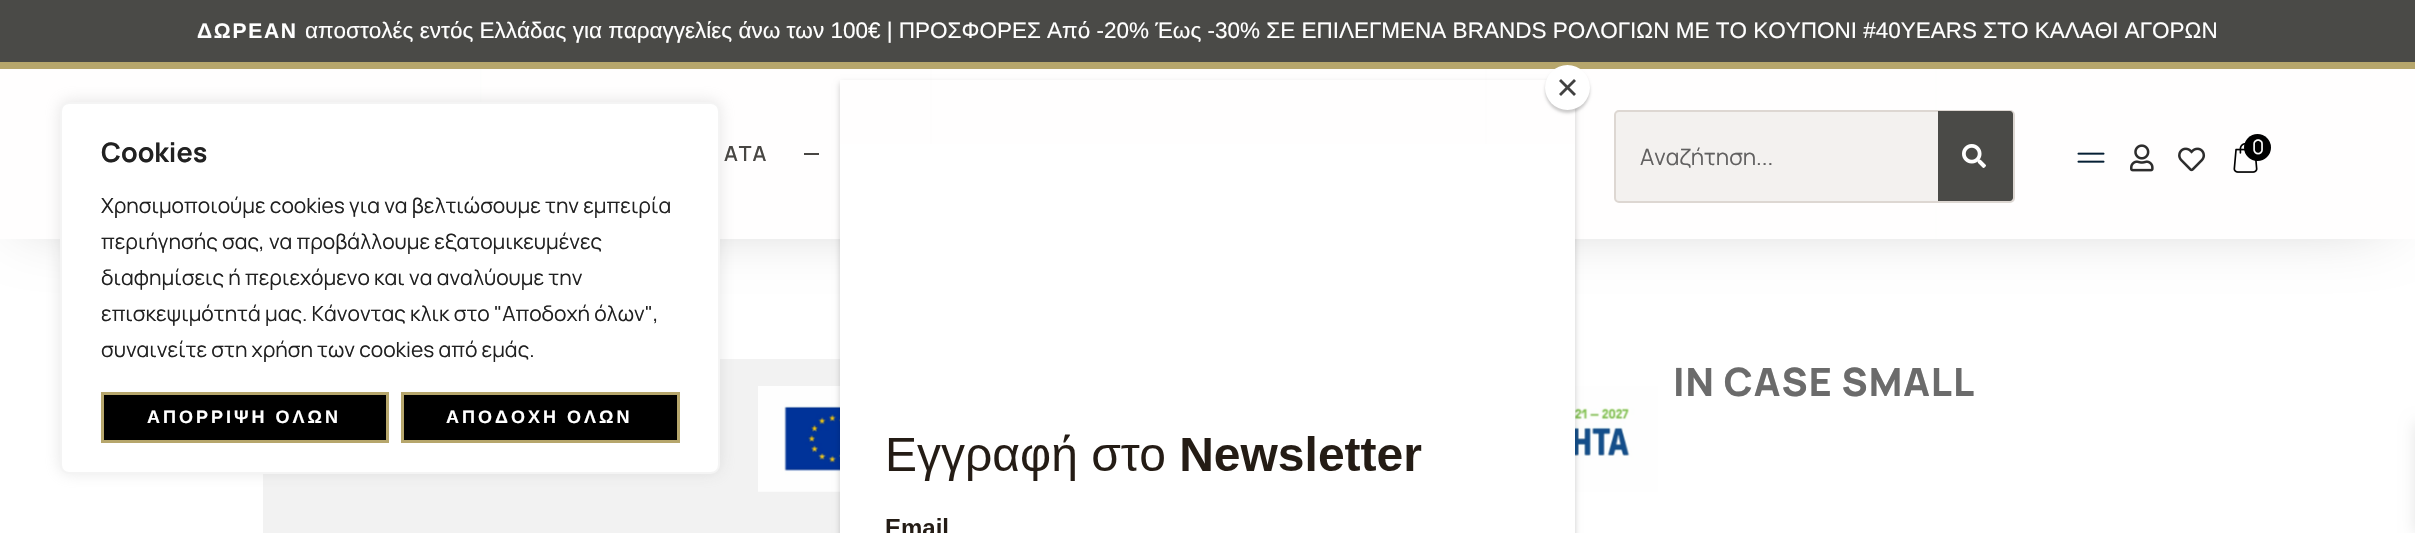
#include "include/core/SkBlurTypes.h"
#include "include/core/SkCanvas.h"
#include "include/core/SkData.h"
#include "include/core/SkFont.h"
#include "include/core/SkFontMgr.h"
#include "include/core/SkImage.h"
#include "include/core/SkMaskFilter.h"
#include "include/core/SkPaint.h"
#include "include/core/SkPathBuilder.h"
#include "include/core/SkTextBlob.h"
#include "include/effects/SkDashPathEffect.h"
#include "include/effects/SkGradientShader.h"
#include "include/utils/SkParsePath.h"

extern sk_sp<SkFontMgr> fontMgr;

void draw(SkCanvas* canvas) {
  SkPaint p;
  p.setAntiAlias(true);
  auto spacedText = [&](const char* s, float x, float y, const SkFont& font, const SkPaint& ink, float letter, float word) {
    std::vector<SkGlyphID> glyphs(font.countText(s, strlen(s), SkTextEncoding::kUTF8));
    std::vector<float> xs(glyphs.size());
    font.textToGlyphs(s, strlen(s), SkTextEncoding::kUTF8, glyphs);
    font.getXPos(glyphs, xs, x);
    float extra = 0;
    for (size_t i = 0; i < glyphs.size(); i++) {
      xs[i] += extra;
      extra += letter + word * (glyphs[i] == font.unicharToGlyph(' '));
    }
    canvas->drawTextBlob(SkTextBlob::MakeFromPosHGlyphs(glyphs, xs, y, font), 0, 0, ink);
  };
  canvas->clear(SkColorSetRGB(246, 244, 242));
  canvas->drawImageRect(SkImages::DeferredFromEncodedData(SkData::MakeFromFileName("images/1.png")), SkRect::MakeLTRB(480, 69, 1937, 239), SkSamplingOptions());
  p.setColor(SK_ColorWHITE);
  canvas->drawRect(SkRect::MakeLTRB(0, 239, 2415, 533), p);
  canvas->save();
  canvas->clipPath(SkPathBuilder(SkPathFillType::kEvenOdd).moveTo(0, 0).lineTo(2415, 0).lineTo(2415, 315).lineTo(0, 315).close().moveTo(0, 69).lineTo(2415, 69).lineTo(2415, 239).lineTo(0, 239).close().detach(), true);
  p.setColor(SkColorSetARGB(77, 0, 0, 0));
  p.setMaskFilter(SkMaskFilter::MakeBlur(kNormal_SkBlurStyle, 34));
  canvas->drawRect(SkRect::MakeLTRB(27, 102, 2382, 212), p);
  p.setMaskFilter(nullptr);
  canvas->restore();
  p.setColor(SkColorSetRGB(74, 74, 71));
  canvas->drawRect(SkRect::MakeLTRB(0, 0, 2415, 62), p);
  p.setColor(SkColorSetRGB(182, 166, 108));
  canvas->drawRect(SkRect::MakeLTRB(0, 62, 2415, 69), p);
  p.setColor(SkColorSetARGB(230, 255, 255, 255));
  canvas->drawRect(SkRect::MakeLTRB(0, 69, 2415, 239), p);
  p.setColor(SkColorSetARGB(51, 0, 0, 0));
  p.setMaskFilter(SkMaskFilter::MakeBlur(kNormal_SkBlurStyle, 1.5f));
  canvas->drawRoundRect(SkRect::MakeLTRB(1545, 68, 1590, 113), 22.5f, 22.5f, p);
  p.setMaskFilter(nullptr);
  p.setColor(SkColorSetRGB(242, 242, 242));
  canvas->drawRect(SkRect::MakeLTRB(263, 359, 840, 533), p);
  canvas->drawImageRect(SkImages::DeferredFromEncodedData(SkData::MakeFromFileName("images/8.png")), SkRect::MakeLTRB(758, 386, 1658, 492), SkSamplingOptions());
  canvas->save();
  canvas->clipPath(SkPathBuilder(SkPathFillType::kEvenOdd).moveTo(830, 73).lineTo(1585, 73).lineTo(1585, 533).lineTo(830, 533).close().moveTo(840, 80).lineTo(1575, 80).lineTo(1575, 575).lineTo(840, 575).close().detach(), true);
  p.setColor(SkColorSetARGB(51, 0, 0, 0));
  p.setMaskFilter(SkMaskFilter::MakeBlur(kNormal_SkBlurStyle, 3));
  canvas->drawRect(SkRect::MakeLTRB(840, 83, 1575, 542), p);
  p.setMaskFilter(nullptr);
  canvas->restore();
  p.setColor(SK_ColorWHITE);
  canvas->drawCircle(1567.5f, 87.5f, 22.5f, p);
  p.setColor(SkColorSetRGB(65, 65, 65));
  canvas->drawPath(SkPathBuilder().moveTo(1574, 79).lineTo(1576, 81).lineTo(1561, 96).lineTo(1559, 94).close().detach(), p);
  canvas->drawPath(SkPathBuilder().moveTo(1559, 81).lineTo(1561, 79).lineTo(1576, 94).lineTo(1574, 96).close().detach(), p);
  canvas->drawImageRect(SkImages::DeferredFromEncodedData(SkData::MakeFromFileName("images/2.png")), SkRect::MakeLTRB(840, 144, 1575, 533), SkSamplingOptions());
  p.setColor(SkColorSetARGB(77, 172, 171, 171));
  p.setMaskFilter(SkMaskFilter::MakeBlur(kNormal_SkBlurStyle, 7.5f));
  canvas->drawRoundRect(SkRect::MakeLTRB(60, 101, 720, 473), 9, 9, p);
  p.setMaskFilter(nullptr);
  p.setColor(SK_ColorWHITE);
  canvas->drawRoundRect(SkRect::MakeLTRB(61, 103, 719, 473), 8, 8, p);
  p.setStyle(SkPaint::kStroke_Style);
  p.setStrokeWidth(2);
  p.setColor(SkColorSetRGB(244, 244, 244));
  canvas->drawRoundRect(SkRect::MakeLTRB(61, 103, 719, 473), 8, 8, p);
  p.setStyle(SkPaint::kFill_Style);
  p.setColor(SK_ColorBLACK);
  canvas->drawRect(SkRect::MakeLTRB(102.5f, 393.5f, 387.5f, 441.5f), p);
  p.setStyle(SkPaint::kStroke_Style);
  p.setStrokeWidth(3);
  p.setColor(SkColorSetRGB(182, 166, 108));
  canvas->drawRect(SkRect::MakeLTRB(102.5f, 393.5f, 387.5f, 441.5f), p);
  p.setStyle(SkPaint::kFill_Style);
  p.setColor(SK_ColorBLACK);
  canvas->drawRect(SkRect::MakeLTRB(402.5f, 393.5f, 678.5f, 441.5f), p);
  p.setStyle(SkPaint::kStroke_Style);
  p.setColor(SkColorSetRGB(182, 166, 108));
  canvas->drawRect(SkRect::MakeLTRB(402.5f, 393.5f, 678.5f, 441.5f), p);
  p.setStyle(SkPaint::kFill_Style);
  p.setColor(SkColorSetRGB(72, 70, 67));
  canvas->drawRect(SkRect::MakeLTRB(804, 153, 819, 155), p);
  p.setColor(SkColorSetRGB(243, 241, 239));
  canvas->drawRoundRect(SkRect::MakeLTRB(1615, 111, 2014, 202), 4, 4, p);
  p.setStyle(SkPaint::kStroke_Style);
  p.setStrokeWidth(2);
  p.setColor(SkColorSetRGB(221, 215, 210));
  canvas->drawRoundRect(SkRect::MakeLTRB(1615, 111, 2014, 202), 4, 4, p);
  p.setStyle(SkPaint::kFill_Style);
  p.setColor(SkColorSetRGB(74, 74, 71));
  canvas->drawPath(SkPathBuilder().moveTo(1938, 111).lineTo(2010, 111).cubicTo(2011.5f, 111, 2013, 112.5f, 2013, 114).lineTo(2013, 198).cubicTo(2013, 199.5f, 2011.5f, 201, 2010, 201).lineTo(1938, 201).close().detach(), p);
  canvas->drawImageRect(SkImages::DeferredFromEncodedData(SkData::MakeFromFileName("images/3.png")), SkRect::MakeLTRB(1962, 144, 1986, 168), SkSamplingOptions());
  canvas->drawImageRect(SkImages::DeferredFromEncodedData(SkData::MakeFromFileName("images/4.png")), SkRect::MakeLTRB(2077, 152, 2105, 163), SkSamplingOptions());
  canvas->drawImageRect(SkImages::DeferredFromEncodedData(SkData::MakeFromFileName("images/5.png")), SkRect::MakeLTRB(2130, 144, 2154, 172), SkSamplingOptions());
  canvas->drawImageRect(SkImages::DeferredFromEncodedData(SkData::MakeFromFileName("images/6.png")), SkRect::MakeLTRB(2178, 147, 2206, 172), SkSamplingOptions());
  canvas->drawImageRect(SkImages::DeferredFromEncodedData(SkData::MakeFromFileName("images/7.png")), SkRect::MakeLTRB(2233, 142, 2258, 173), SkSamplingOptions());
  p.setColor(SK_ColorBLACK);
  canvas->drawCircle(2257.5f, 147.5f, 13.5f, p);
  p.setColor(SkColorSetARGB(26, 0, 0, 0));
  p.setMaskFilter(SkMaskFilter::MakeBlur(kNormal_SkBlurStyle, 7.5f));
  canvas->drawRect(SkRect::MakeLTRB(2415, 423, 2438, 533), p);
  p.setMaskFilter(nullptr);
  SkFont font1(fontMgr->matchFamilyStyle("Liberation Sans", SkFontStyle::Bold()), 21);
  font1.setSubpixel(true);
  p.setColor(SK_ColorWHITE);
  spacedText("ΔΩΡΕΑΝ", 197, 38, font1, p, 1.75f, 0);
  SkFont font2(fontMgr->matchFamilyStyle("Liberation Sans", SkFontStyle::Normal()), 22.5f);
  font2.setSubpixel(true);
  canvas->drawString("αποστολές εντός Ελλάδας για παραγγελίες άνω των 100€ | ΠΡΟΣΦΟΡΕΣ Από -20% Έως -30% ΣΕ ΕΠΙΛΕΓΜΕΝΑ BRANDS ΡΟΛΟΓΙΩΝ ΜΕ ΤΟ ΚΟΥΠΟΝΙ #40YEARS ΣΤΟ ΚΑΛΑΘΙ ΑΓΟΡΩΝ", 305, 38, font2, p);
  SkFont font3(fontMgr->matchFamilyStyle("Manrope", SkFontStyle::Bold()), 27);
  font3.setSubpixel(true);
  p.setColor(SkColorSetRGB(33, 33, 33));
  canvas->drawString("Cookies", 101, 162, font3, p);
  SkFont font4(fontMgr->matchFamilyStyle("Manrope", SkFontStyle::Normal()), 21);
  font4.setSubpixel(true);
  canvas->drawString("Χρησιμοποιούμε cookies για να βελτιώσουμε την εμπειρία", 101, 213, font4, p);
  canvas->drawString("περιήγησής σας, να προβάλλουμε εξατομικευμένες", 101, 249, font4, p);
  canvas->drawString("διαφημίσεις ή περιεχόμενο και να αναλύουμε την", 101, 285, font4, p);
  canvas->drawString("επισκεψιμότητά μας. Κάνοντας κλικ στο \"Αποδοχή όλων\",", 101, 321, font4, p);
  canvas->drawString("συναινείτε στη χρήση των cookies από εμάς.", 101, 357, font4, p);
  SkFont font5(fontMgr->matchFamilyStyle("Liberation Sans", SkFontStyle::Bold()), 18);
  font5.setSubpixel(true);
  p.setColor(SK_ColorWHITE);
  spacedText("ΑΠΟΡΡΙΨΗ ΟΛΩΝ", 147, 423, font5, p, 3, 0);
  spacedText("ΑΠΟΔΟΧΗ ΟΛΩΝ", 446, 423, font5, p, 3, 0);
  SkFont font6(fontMgr->matchFamilyStyle("Manrope", SkFontStyle(600, SkFontStyle::kNormal_Width, SkFontStyle::kUpright_Slant)), 21);
  font6.setSubpixel(true);
  p.setColor(SkColorSetRGB(72, 70, 67));
  spacedText("ΑΤΑ", 724, 161, font6, p, 1, 0);
  SkFont font7(fontMgr->matchFamilyStyle("Manrope", SkFontStyle::Normal()), 22.5f);
  font7.setSubpixel(true);
  p.setColor(SkColorSetRGB(97, 96, 96));
  canvas->drawString("Αναζήτηση...", 1640, 165, font7, p);
  SkFont font8(fontMgr->matchFamilyStyle("Manrope", SkFontStyle::Normal()), 20);
  font8.setSubpixel(true);
  p.setColor(SK_ColorWHITE);
  canvas->drawString("0", 2252, 154, font8, p);
  SkFont font9(fontMgr->matchFamilyStyle("Manrope", SkFontStyle(800, SkFontStyle::kNormal_Width, SkFontStyle::kUpright_Slant)), 39);
  font9.setSubpixel(true);
  p.setColor(SkColorSetRGB(107, 107, 107));
  spacedText("IN CASE SMALL", 1673, 396, font9, p, 1, 0);
}
